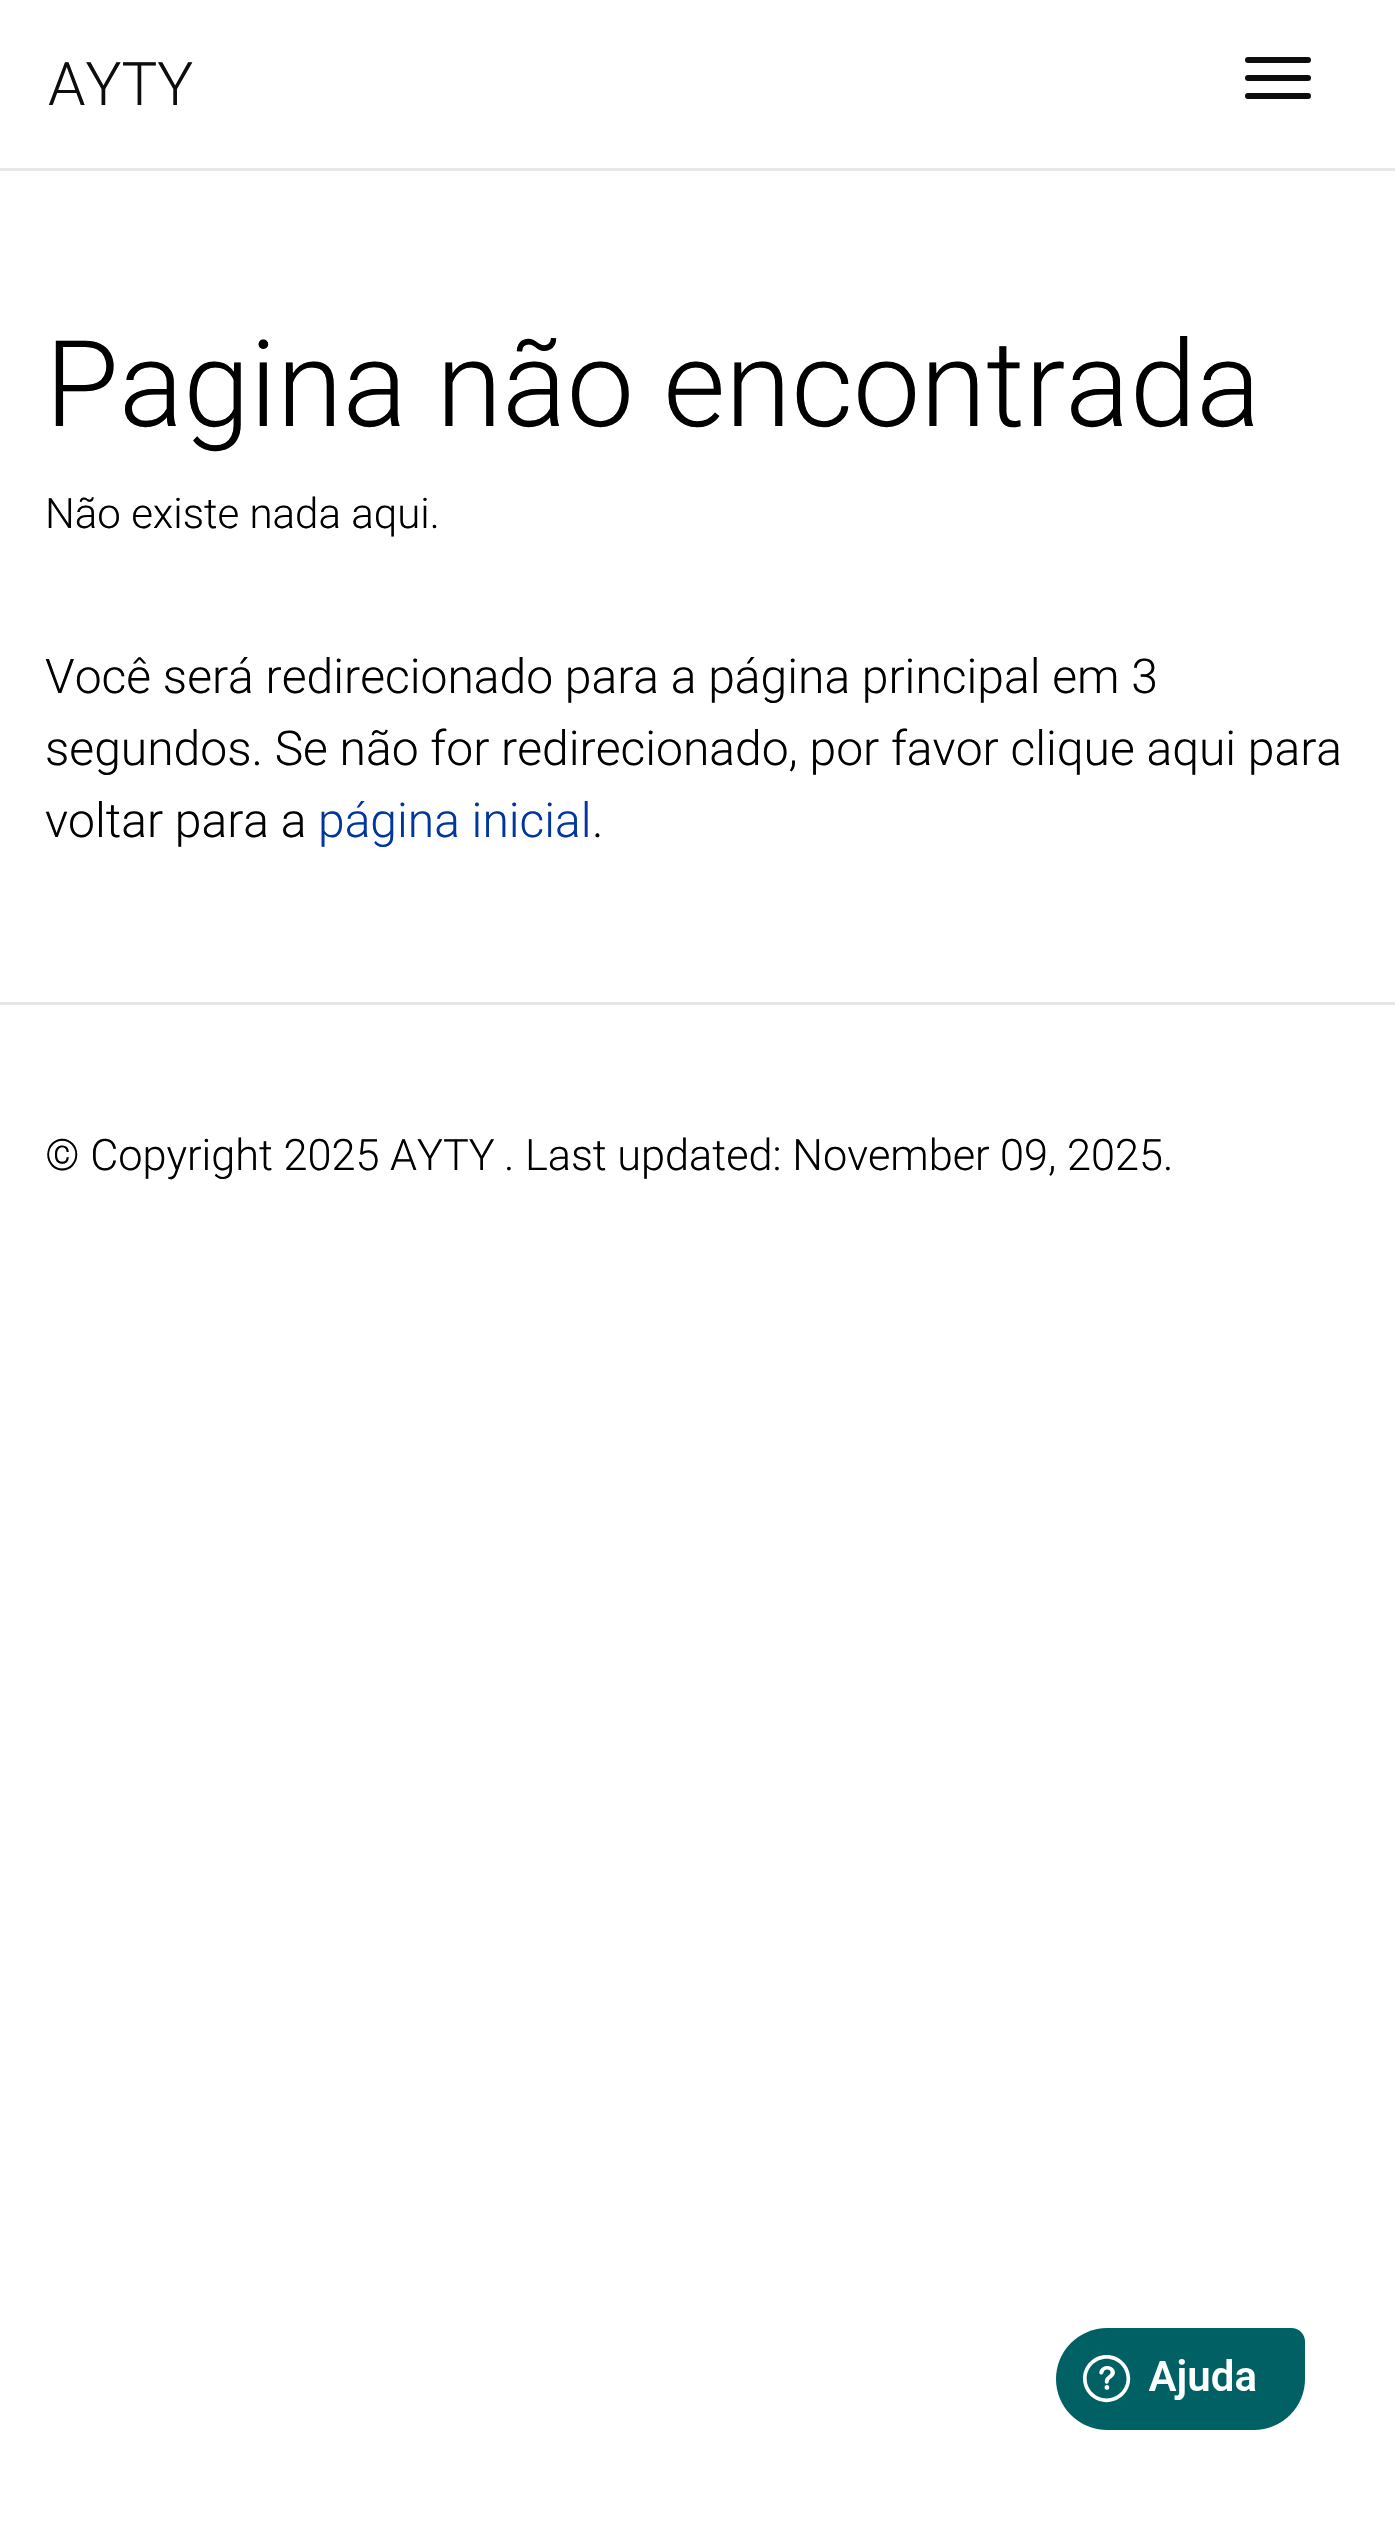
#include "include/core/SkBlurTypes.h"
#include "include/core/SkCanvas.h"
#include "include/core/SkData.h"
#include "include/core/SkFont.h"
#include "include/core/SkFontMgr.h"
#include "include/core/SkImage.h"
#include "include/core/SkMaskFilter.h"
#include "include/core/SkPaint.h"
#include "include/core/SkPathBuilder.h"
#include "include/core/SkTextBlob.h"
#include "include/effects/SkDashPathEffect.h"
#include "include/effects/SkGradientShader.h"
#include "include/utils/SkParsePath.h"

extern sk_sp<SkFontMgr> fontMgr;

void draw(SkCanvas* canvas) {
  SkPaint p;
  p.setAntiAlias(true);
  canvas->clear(SK_ColorWHITE);
  p.setColor(SkColorSetRGB(231, 231, 231));
  canvas->drawRect(SkRect::MakeLTRB(0, 168, 1395, 171), p);
  p.setColor(SkColorSetRGB(13, 13, 13));
  canvas->drawRoundRect(SkRect::MakeLTRB(1245, 57, 1311, 63), 3, 3, p);
  canvas->drawRoundRect(SkRect::MakeLTRB(1245, 75, 1311, 81), 3, 3, p);
  canvas->drawRoundRect(SkRect::MakeLTRB(1245, 93, 1311, 99), 3, 3, p);
  p.setColor(SkColorSetRGB(230, 230, 230));
  canvas->drawRect(SkRect::MakeLTRB(0, 1002, 1395, 1005), p);
  canvas->drawImageRect(SkImages::DeferredFromEncodedData(SkData::MakeFromFileName("images/1.png")), SkRect::MakeLTRB(1056, 2328, 1305, 2430), SkSamplingOptions());
  SkFont font1(fontMgr->matchFamilyStyle("Roboto", SkFontStyle(300, SkFontStyle::kNormal_Width, SkFontStyle::kUpright_Slant)), 60);
  font1.setSubpixel(true);
  p.setColor(SkColorSetRGB(13, 13, 13));
  canvas->drawString("AYTY", 48, 105, font1, p);
  SkFont font2(fontMgr->matchFamilyStyle("Roboto", SkFontStyle(300, SkFontStyle::kNormal_Width, SkFontStyle::kUpright_Slant)), 120);
  font2.setSubpixel(true);
  p.setColor(SK_ColorBLACK);
  canvas->drawString("Pagina não encontrada", 45, 426, font2, p);
  SkFont font3(fontMgr->matchFamilyStyle("Roboto", SkFontStyle(300, SkFontStyle::kNormal_Width, SkFontStyle::kUpright_Slant)), 42);
  font3.setSubpixel(true);
  canvas->drawString("Não existe nada aqui.", 45, 528, font3, p);
  SkFont font4(fontMgr->matchFamilyStyle("Roboto", SkFontStyle(300, SkFontStyle::kNormal_Width, SkFontStyle::kUpright_Slant)), 48);
  font4.setSubpixel(true);
  canvas->drawString("Você será redirecionado para a página principal em 3", 45, 693, font4, p);
  canvas->drawString("segundos. Se não for redirecionado, por favor clique aqui para", 45, 765, font4, p);
  canvas->drawString("voltar para a", 45, 837, font4, p);
  p.setColor(SkColorSetRGB(0, 54, 159));
  canvas->drawString("página inicial", 318, 837, font4, p);
  p.setColor(SK_ColorBLACK);
  canvas->drawString(".", 592, 837, font4, p);
  SkFont font5(fontMgr->matchFamilyStyle("Roboto", SkFontStyle(300, SkFontStyle::kNormal_Width, SkFontStyle::kUpright_Slant)), 43.25f);
  font5.setSubpixel(true);
  canvas->drawString("© Copyright 2025 AYTY", 45, 1170, font5, p);
  canvas->drawString(". Last updated: November 09, 2025.", 504, 1170, font5, p);
}
